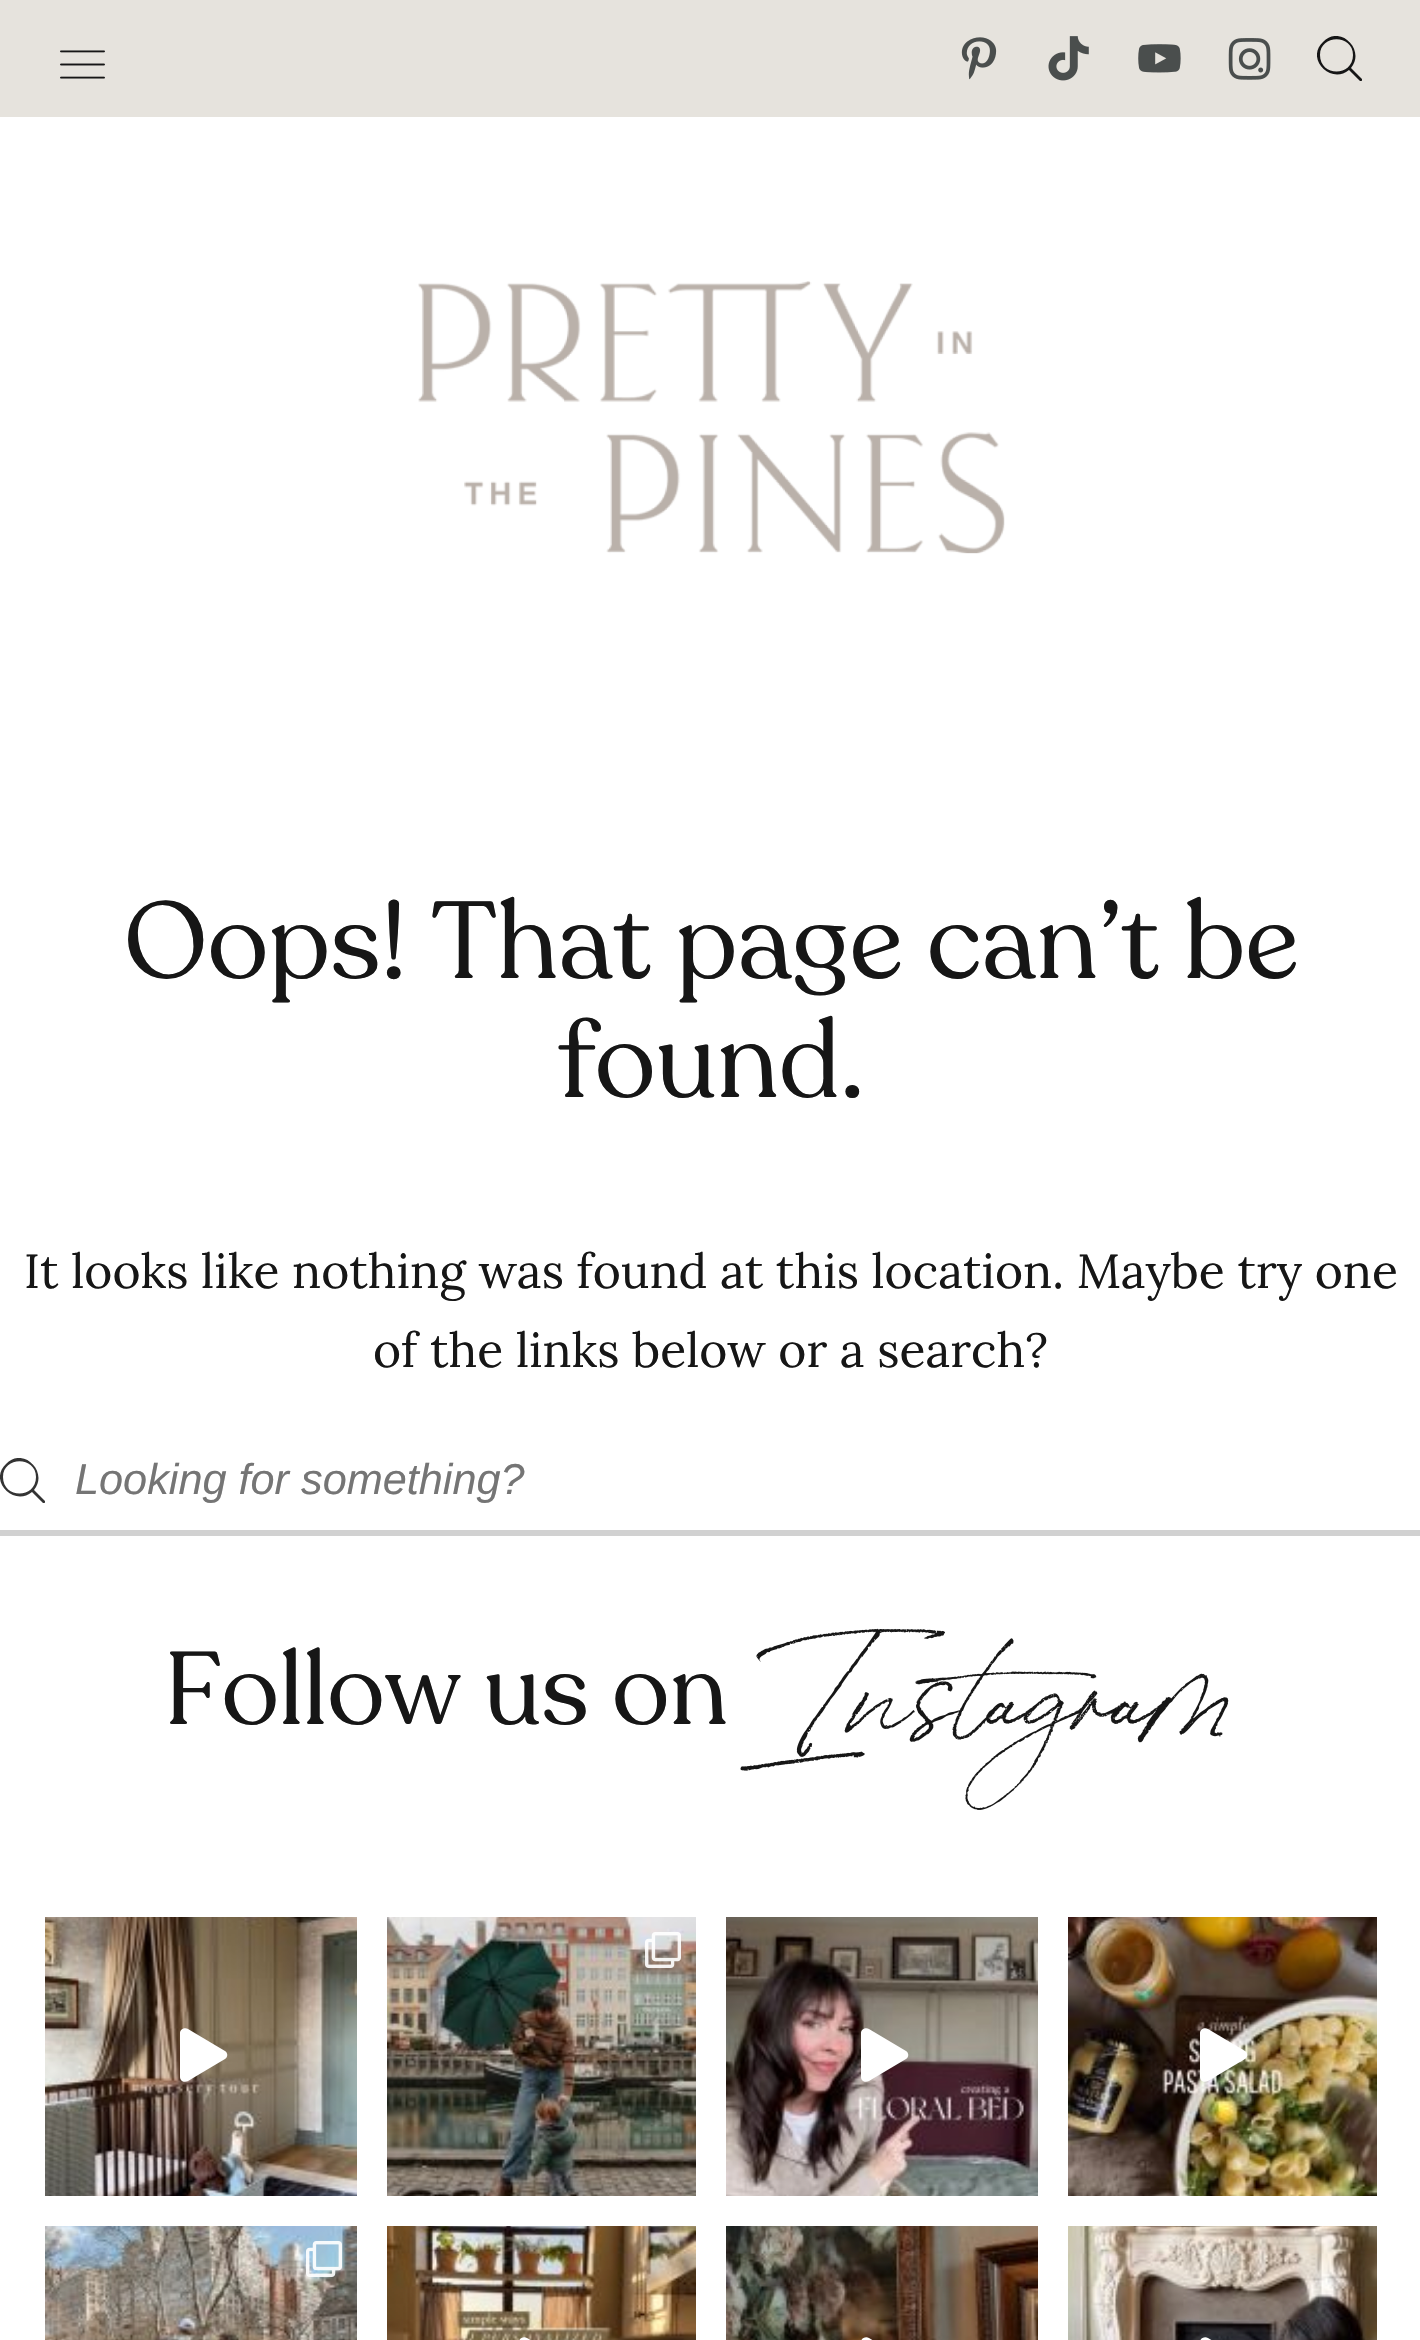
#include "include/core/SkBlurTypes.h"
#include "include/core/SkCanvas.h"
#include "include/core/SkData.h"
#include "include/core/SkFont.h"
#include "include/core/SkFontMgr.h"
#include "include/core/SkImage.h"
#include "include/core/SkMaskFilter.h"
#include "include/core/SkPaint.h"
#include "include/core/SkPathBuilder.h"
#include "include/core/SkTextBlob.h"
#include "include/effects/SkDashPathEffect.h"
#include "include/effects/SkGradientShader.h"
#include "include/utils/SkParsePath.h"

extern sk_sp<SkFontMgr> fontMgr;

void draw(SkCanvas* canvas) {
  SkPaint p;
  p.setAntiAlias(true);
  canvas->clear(SK_ColorWHITE);
  p.setColor(SkColorSetRGB(230, 227, 221));
  canvas->drawRect(SkRect::MakeLTRB(0, 0, 1420, 117), p);
  canvas->drawImageRect(SkImages::DeferredFromEncodedData(SkData::MakeFromFileName("images/1.png")), SkRect::MakeLTRB(60, 50, 105, 79), SkSamplingOptions());
  canvas->drawImageRect(SkImages::DeferredFromEncodedData(SkData::MakeFromFileName("images/2.png")), SkRect::MakeLTRB(961, 37, 997, 80), SkSamplingOptions());
  canvas->drawImageRect(SkImages::DeferredFromEncodedData(SkData::MakeFromFileName("images/3.png")), SkRect::MakeLTRB(1048, 36, 1089, 81), SkSamplingOptions());
  canvas->drawImageRect(SkImages::DeferredFromEncodedData(SkData::MakeFromFileName("images/4.png")), SkRect::MakeLTRB(1138, 44, 1181, 73), SkSamplingOptions());
  canvas->drawImageRect(SkImages::DeferredFromEncodedData(SkData::MakeFromFileName("images/5.png")), SkRect::MakeLTRB(1228, 38, 1271, 80), SkSamplingOptions());
  canvas->save();
  canvas->clipRect(SkRect::MakeLTRB(1317, 36, 1362, 81));
  p.setColor(SkColorSetRGB(22, 22, 22));
  canvas->drawPath(SkPathBuilder().moveTo(1362, 79).lineTo(1351, 68).cubicTo(1366, 50, 1340, 24, 1323, 42).cubicTo(1305, 59, 1331, 85, 1349, 70).lineTo(1360, 81).cubicTo(1361, 82, 1363, 80, 1362, 79).close().moveTo(1320, 55).cubicTo(1320, 34, 1353, 34, 1353, 55).cubicTo(1353, 77, 1320, 77, 1320, 55).close().detach(), p);
  canvas->restore();
  canvas->drawImageRect(SkImages::DeferredFromEncodedData(SkData::MakeFromFileName("images/6.png")), SkRect::MakeLTRB(418, 281, 1005, 554), SkSamplingOptions());
  canvas->save();
  canvas->clipRect(SkRect::MakeLTRB(0, 1458, 45, 1503));
  p.setColor(SkColorSetRGB(51, 51, 51));
  canvas->drawPath(SkPathBuilder().moveTo(45, 1501).lineTo(34, 1490).cubicTo(49, 1472, 23, 1446, 6, 1464).cubicTo(-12, 1481, 14, 1507, 32, 1492).lineTo(43, 1503).cubicTo(44, 1504, 46, 1502, 45, 1501).close().moveTo(3, 1477).cubicTo(3, 1456, 36, 1456, 36, 1477).cubicTo(36, 1499, 3, 1499, 3, 1477).close().detach(), p);
  canvas->restore();
  p.setColor(SkColorSetRGB(209, 209, 209));
  canvas->drawRect(SkRect::MakeLTRB(0, 1530, 1420, 1536), p);
  canvas->drawImageRect(SkImages::DeferredFromEncodedData(SkData::MakeFromFileName("images/7.png")), SkRect::MakeLTRB(740, 1628, 1229, 1810), SkSamplingOptions());
  canvas->drawImageRect(SkImages::DeferredFromEncodedData(SkData::MakeFromFileName("images/8.png")), SkRect::MakeLTRB(45, 1917, 357, 2196), SkSamplingOptions());
  p.setColor(SK_ColorWHITE);
  canvas->drawPath(SkPathBuilder().moveTo(225, 2051).lineTo(188, 2029).cubicTo(185, 2027, 180, 2029, 180, 2033).lineTo(180, 2077).cubicTo(180, 2081, 184, 2083, 188, 2081).lineTo(225, 2059).cubicTo(228, 2057, 228, 2053, 225, 2051).close().detach(), p);
  canvas->drawImageRect(SkImages::DeferredFromEncodedData(SkData::MakeFromFileName("images/9.png")), SkRect::MakeLTRB(387, 1917, 696, 2196), SkSamplingOptions());
  canvas->drawImageRect(SkImages::DeferredFromEncodedData(SkData::MakeFromFileName("images/10.png")), SkRect::MakeLTRB(645, 1932, 681, 1968), SkSamplingOptions());
  canvas->drawImageRect(SkImages::DeferredFromEncodedData(SkData::MakeFromFileName("images/11.png")), SkRect::MakeLTRB(726, 1917, 1038, 2196), SkSamplingOptions());
  canvas->drawPath(SkPathBuilder().moveTo(906, 2051).lineTo(869, 2029).cubicTo(866, 2027, 861, 2029, 861, 2033).lineTo(861, 2077).cubicTo(861, 2081, 865, 2083, 869, 2081).lineTo(906, 2059).cubicTo(909, 2057, 909, 2053, 906, 2051).close().detach(), p);
  canvas->drawImageRect(SkImages::DeferredFromEncodedData(SkData::MakeFromFileName("images/12.png")), SkRect::MakeLTRB(1068, 1917, 1377, 2196), SkSamplingOptions());
  canvas->drawPath(SkPathBuilder().moveTo(1245, 2051).lineTo(1208, 2029).cubicTo(1205, 2027, 1200, 2029, 1200, 2033).lineTo(1200, 2077).cubicTo(1200, 2081, 1204, 2083, 1208, 2081).lineTo(1245, 2059).cubicTo(1248, 2057, 1248, 2053, 1245, 2051).close().detach(), p);
  canvas->drawImageRect(SkImages::DeferredFromEncodedData(SkData::MakeFromFileName("images/13.png")), SkRect::MakeLTRB(45, 2226, 357, 2340), SkSamplingOptions());
  canvas->drawImageRect(SkImages::DeferredFromEncodedData(SkData::MakeFromFileName("images/14.png")), SkRect::MakeLTRB(306, 2241, 342, 2277), SkSamplingOptions());
  canvas->drawImageRect(SkImages::DeferredFromEncodedData(SkData::MakeFromFileName("images/15.png")), SkRect::MakeLTRB(387, 2226, 696, 2340), SkSamplingOptions());
  canvas->drawPath(SkPathBuilder().moveTo(564, 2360).lineTo(527, 2338).cubicTo(524, 2336, 519, 2338, 519, 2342).lineTo(519, 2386).cubicTo(519, 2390, 523, 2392, 527, 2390).lineTo(564, 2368).cubicTo(567, 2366, 567, 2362, 564, 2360).close().detach(), p);
  canvas->drawImageRect(SkImages::DeferredFromEncodedData(SkData::MakeFromFileName("images/16.png")), SkRect::MakeLTRB(726, 2226, 1038, 2340), SkSamplingOptions());
  canvas->drawPath(SkPathBuilder().moveTo(906, 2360).lineTo(869, 2338).cubicTo(866, 2336, 861, 2338, 861, 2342).lineTo(861, 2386).cubicTo(861, 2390, 865, 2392, 869, 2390).lineTo(906, 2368).cubicTo(909, 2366, 909, 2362, 906, 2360).close().detach(), p);
  canvas->drawImageRect(SkImages::DeferredFromEncodedData(SkData::MakeFromFileName("images/17.png")), SkRect::MakeLTRB(1068, 2226, 1377, 2340), SkSamplingOptions());
  canvas->drawPath(SkPathBuilder().moveTo(1245, 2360).lineTo(1208, 2338).cubicTo(1205, 2336, 1200, 2338, 1200, 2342).lineTo(1200, 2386).cubicTo(1200, 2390, 1204, 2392, 1208, 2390).lineTo(1245, 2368).cubicTo(1248, 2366, 1248, 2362, 1245, 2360).close().detach(), p);
  SkFont font1(fontMgr->matchFamilyStyle("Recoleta", SkFontStyle::Normal()), 108);
  font1.setSubpixel(true);
  p.setColor(SkColorSetRGB(22, 22, 22));
  canvas->drawString("Oops! That page can’t be", 124, 978, font1, p);
  canvas->drawString("found.", 558, 1097, font1, p);
  SkFont font2(fontMgr->matchFamilyStyle("Lora", SkFontStyle::Normal()), 48);
  font2.setSubpixel(true);
  canvas->drawString("It looks like nothing was found at this location. Maybe try one", 24, 1288, font2, p);
  canvas->drawString("of the links below or a search?", 373, 1367, font2, p);
  SkFont font3(fontMgr->matchFamilyStyle("Liberation Sans", SkFontStyle::Italic()), 43.25f);
  font3.setSubpixel(true);
  p.setColor(SkColorSetRGB(117, 117, 117));
  canvas->drawString("Looking for something?", 75, 1494, font3, p);
  SkFont font4(fontMgr->matchFamilyStyle("Recoleta", SkFontStyle::Normal()), 102);
  font4.setSubpixel(true);
  p.setColor(SkColorSetRGB(22, 22, 22));
  canvas->drawString("Follow us on", 164, 1724, font4, p);
}
